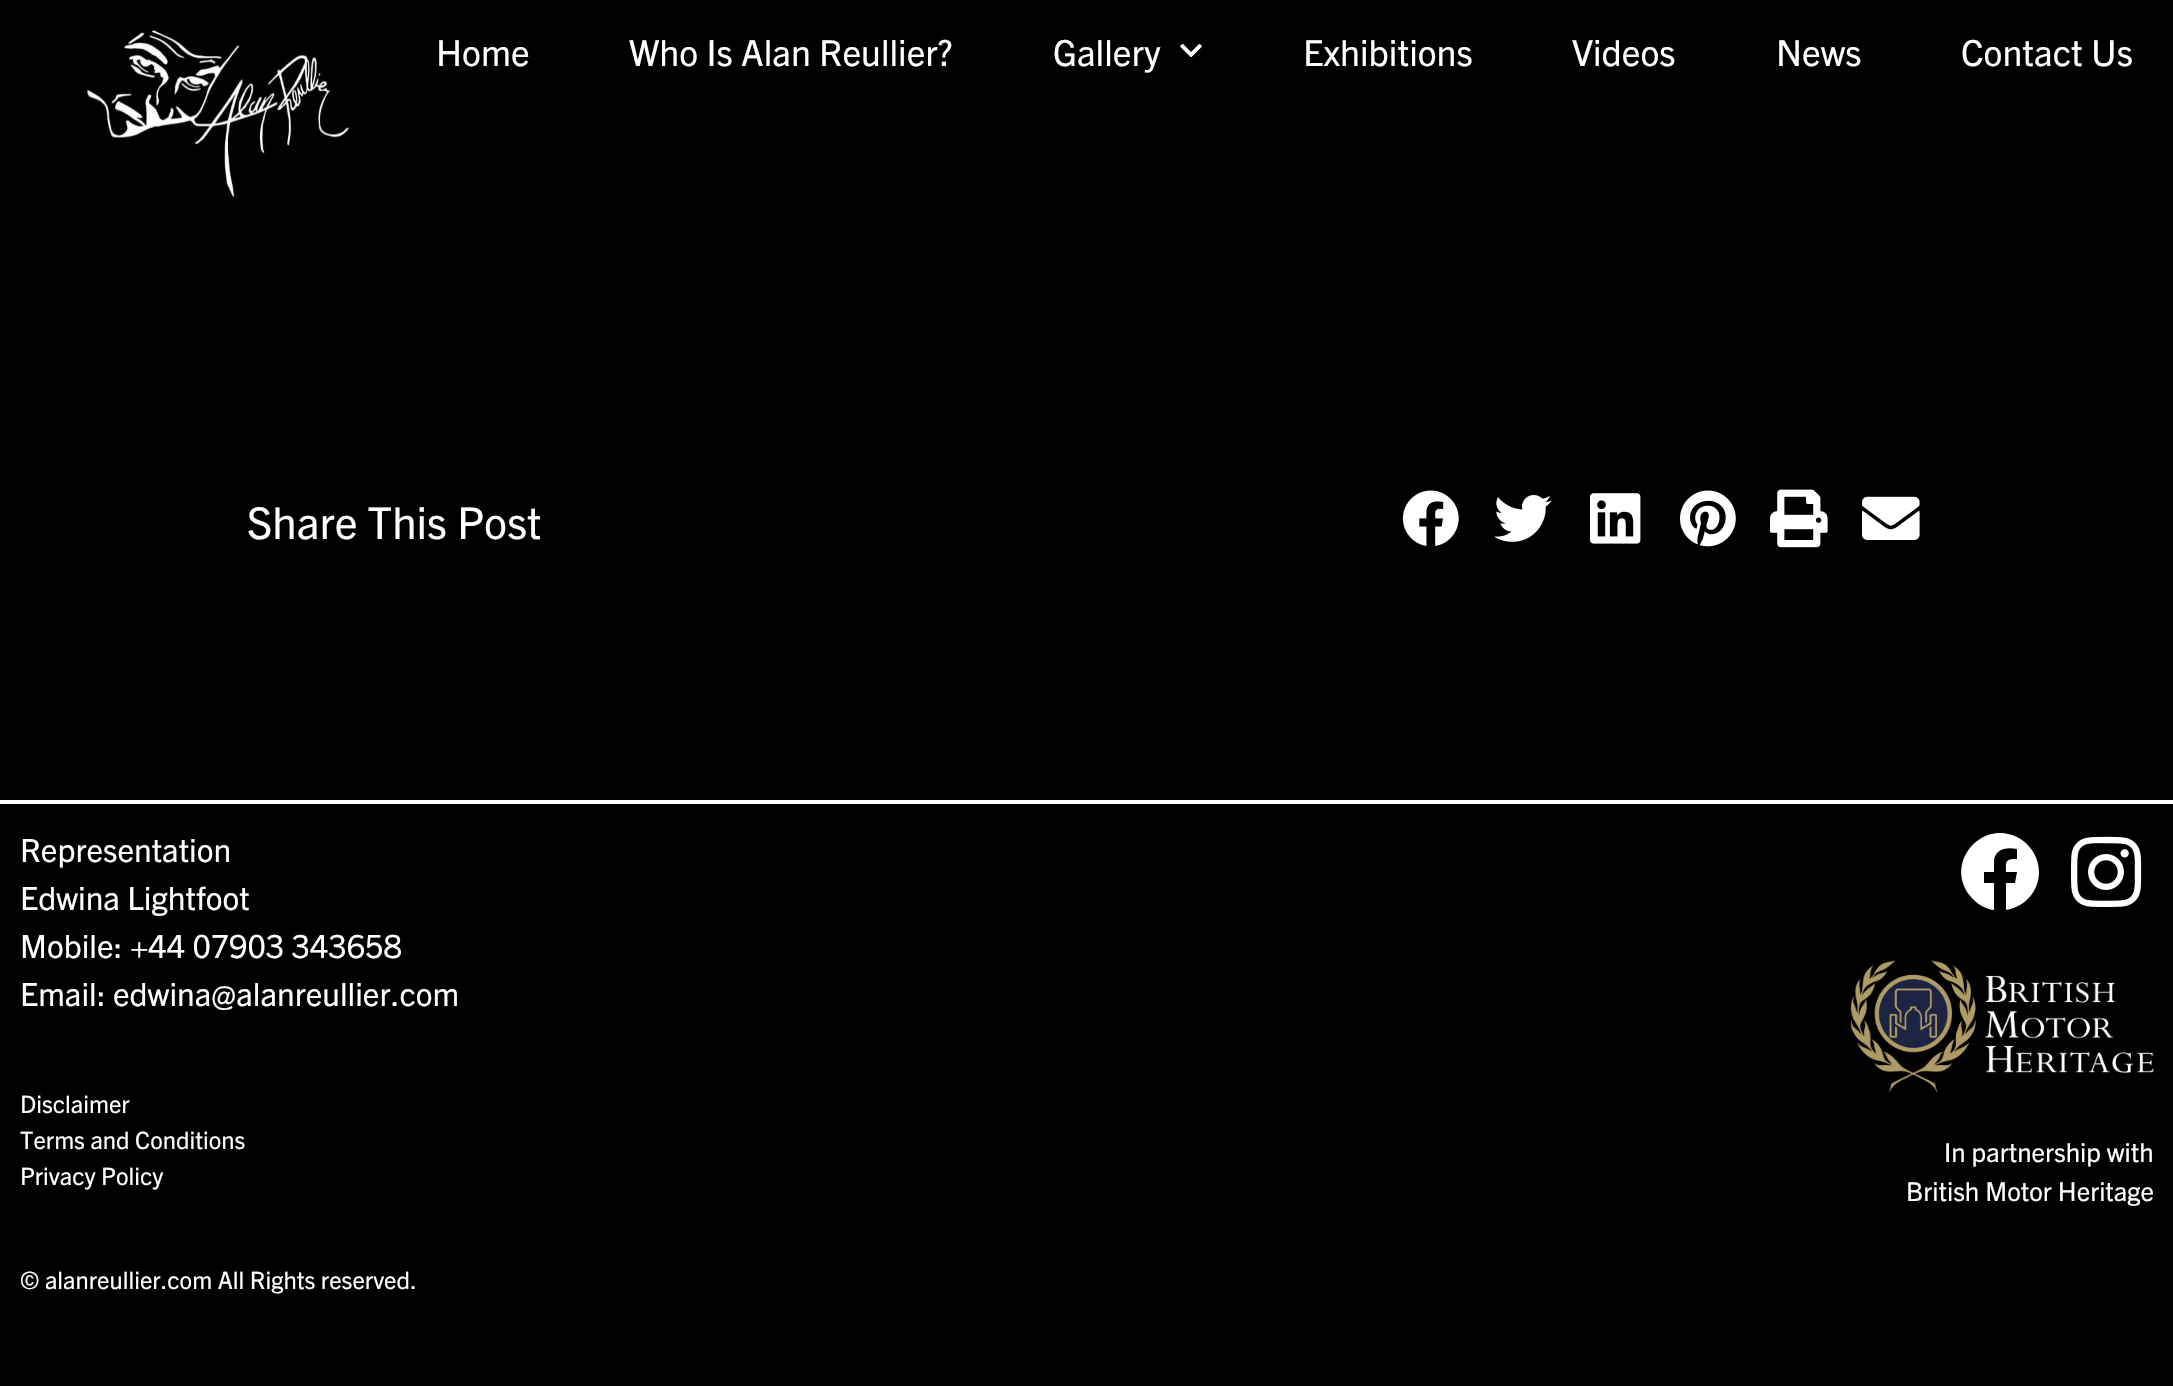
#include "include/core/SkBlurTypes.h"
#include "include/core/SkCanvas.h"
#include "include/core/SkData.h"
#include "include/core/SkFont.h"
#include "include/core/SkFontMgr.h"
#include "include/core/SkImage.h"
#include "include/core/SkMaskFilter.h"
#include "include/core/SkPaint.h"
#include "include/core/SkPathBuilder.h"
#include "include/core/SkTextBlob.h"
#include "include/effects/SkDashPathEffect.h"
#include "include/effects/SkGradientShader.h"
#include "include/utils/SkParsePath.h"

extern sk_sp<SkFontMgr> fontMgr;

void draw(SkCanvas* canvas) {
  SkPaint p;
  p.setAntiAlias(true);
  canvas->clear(SK_ColorBLACK);
  canvas->drawImageRect(SkImages::DeferredFromEncodedData(SkData::MakeFromFileName("images/1.png")), SkRect::MakeLTRB(86, 29, 351, 198), SkSamplingOptions());
  canvas->drawImageRect(SkImages::DeferredFromEncodedData(SkData::MakeFromFileName("images/2.png")), SkRect::MakeLTRB(1180, 44, 1202, 57), SkSamplingOptions());
  canvas->drawImageRect(SkImages::DeferredFromEncodedData(SkData::MakeFromFileName("images/3.png")), SkRect::MakeLTRB(1402, 490, 1459, 546), SkSamplingOptions());
  canvas->drawImageRect(SkImages::DeferredFromEncodedData(SkData::MakeFromFileName("images/4.png")), SkRect::MakeLTRB(1494, 495, 1552, 542), SkSamplingOptions());
  canvas->drawImageRect(SkImages::DeferredFromEncodedData(SkData::MakeFromFileName("images/5.png")), SkRect::MakeLTRB(1590, 493, 1641, 544), SkSamplingOptions());
  canvas->drawImageRect(SkImages::DeferredFromEncodedData(SkData::MakeFromFileName("images/6.png")), SkRect::MakeLTRB(1680, 490, 1736, 547), SkSamplingOptions());
  canvas->drawImageRect(SkImages::DeferredFromEncodedData(SkData::MakeFromFileName("images/7.png")), SkRect::MakeLTRB(1770, 489, 1828, 548), SkSamplingOptions());
  canvas->drawImageRect(SkImages::DeferredFromEncodedData(SkData::MakeFromFileName("images/8.png")), SkRect::MakeLTRB(1862, 496, 1920, 540), SkSamplingOptions());
  p.setColor(SK_ColorWHITE);
  canvas->drawRect(SkRect::MakeLTRB(0, 800, 2173, 804), p);
  canvas->drawPath(SkPathBuilder().moveTo(2039, 872).cubicTo(2039, 891, 2025, 907, 2006, 910).lineTo(2006, 883).lineTo(2015, 883).lineTo(2017, 872).lineTo(2006, 872).cubicTo(2006, 861, 2005, 859, 2017, 859).lineTo(2017, 849).cubicTo(2008, 847, 1996, 848, 1994, 860).lineTo(1994, 872).lineTo(1984, 872).lineTo(1984, 883).lineTo(1994, 883).lineTo(1994, 910).cubicTo(1985, 909, 1977, 904, 1971, 897).cubicTo(1942, 863, 1984, 815, 2022, 840).cubicTo(2032, 847, 2039, 859, 2039, 872).close().detach(), p);
  canvas->drawImageRect(SkImages::DeferredFromEncodedData(SkData::MakeFromFileName("images/9.png")), SkRect::MakeLTRB(2071, 836, 2142, 907), SkSamplingOptions());
  canvas->drawImageRect(SkImages::DeferredFromEncodedData(SkData::MakeFromFileName("images/10.png")), SkRect::MakeLTRB(1850, 960, 2154, 1092), SkSamplingOptions());
  SkFont font1(fontMgr->matchFamilyStyle("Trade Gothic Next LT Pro", SkFontStyle::Normal()), 36);
  font1.setSubpixel(true);
  canvas->drawString("Home", 436, 66, font1, p);
  canvas->drawString("Who Is Alan Reullier?", 629, 66, font1, p);
  canvas->drawString("Gallery", 1053, 66, font1, p);
  canvas->drawString("Exhibitions", 1303, 66, font1, p);
  canvas->drawString("Videos", 1572, 66, font1, p);
  canvas->drawString("News", 1776, 66, font1, p);
  canvas->drawString("Contact Us", 1961, 66, font1, p);
  SkFont font2(fontMgr->matchFamilyStyle("Trade Gothic Next LT Pro", SkFontStyle::Normal()), 44);
  font2.setSubpixel(true);
  canvas->drawString("Share This Post", 247, 539, font2, p);
  SkFont font3(fontMgr->matchFamilyStyle("Trade Gothic Next LT Pro", SkFontStyle::Normal()), 32);
  font3.setSubpixel(true);
  canvas->drawString("Representation", 20, 862, font3, p);
  canvas->drawString("Edwina Lightfoot", 20, 910, font3, p);
  canvas->drawString("Mobile: +44 07903 343658", 20, 958, font3, p);
  canvas->drawString("Email: edwina@alanreullier.com", 20, 1006, font3, p);
  SkFont font4(fontMgr->matchFamilyStyle("Trade Gothic Next LT Pro", SkFontStyle::Normal()), 24);
  font4.setSubpixel(true);
  canvas->drawString("Disclaimer", 20, 1113, font4, p);
  canvas->drawString("Terms and Conditions", 20, 1149, font4, p);
  canvas->drawString("Privacy Policy", 20, 1185, font4, p);
  canvas->drawString("© alanreullier.com All Rights reserved.", 20, 1289, font4, p);
  SkFont font5(fontMgr->matchFamilyStyle("Trade Gothic Next LT Pro", SkFontStyle::Normal()), 26);
  font5.setSubpixel(true);
  canvas->drawString("In partnership with", 1944, 1162, font5, p);
  canvas->drawString("British Motor Heritage", 1906, 1201, font5, p);
}
